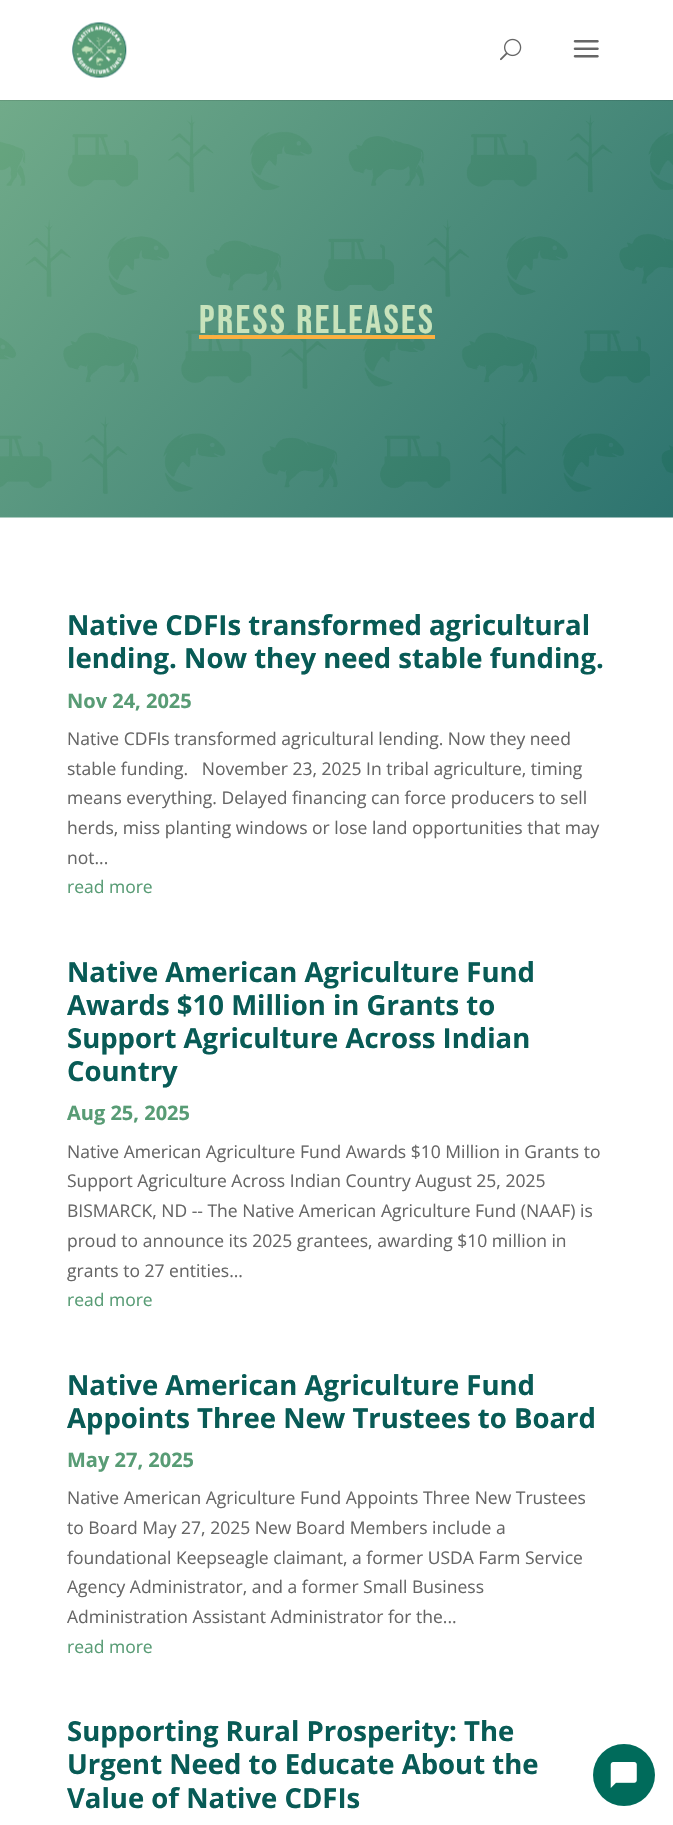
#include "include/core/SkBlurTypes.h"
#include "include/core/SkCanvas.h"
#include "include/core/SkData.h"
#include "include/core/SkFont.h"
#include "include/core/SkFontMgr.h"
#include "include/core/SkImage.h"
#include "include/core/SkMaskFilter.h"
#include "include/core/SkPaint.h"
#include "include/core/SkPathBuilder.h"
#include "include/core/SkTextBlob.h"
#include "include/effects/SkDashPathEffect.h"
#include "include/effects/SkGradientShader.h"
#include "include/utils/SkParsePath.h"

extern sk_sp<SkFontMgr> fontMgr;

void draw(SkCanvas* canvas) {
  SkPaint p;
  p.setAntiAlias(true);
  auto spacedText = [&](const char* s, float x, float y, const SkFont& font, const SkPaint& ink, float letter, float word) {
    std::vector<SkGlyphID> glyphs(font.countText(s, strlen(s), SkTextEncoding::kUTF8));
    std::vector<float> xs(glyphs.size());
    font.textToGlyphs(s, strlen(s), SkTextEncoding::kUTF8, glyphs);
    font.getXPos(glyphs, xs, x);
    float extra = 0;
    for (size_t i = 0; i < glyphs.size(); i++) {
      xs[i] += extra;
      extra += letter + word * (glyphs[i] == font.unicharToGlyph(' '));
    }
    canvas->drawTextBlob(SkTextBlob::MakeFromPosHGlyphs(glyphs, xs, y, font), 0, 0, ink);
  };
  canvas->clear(SK_ColorWHITE);
  canvas->drawImageRect(SkImages::DeferredFromEncodedData(SkData::MakeFromFileName("images/4.png")), SkRect::MakeLTRB(0, 100, 673, 518), SkSamplingOptions());
  p.setColor(SkColorSetARGB(26, 0, 0, 0));
  canvas->drawPath(SkPathBuilder().moveTo(0, 100).lineTo(0, 101).lineTo(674, 101).lineTo(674, 1).lineTo(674, 100).close().detach(), p);
  canvas->drawImageRect(SkImages::DeferredFromEncodedData(SkData::MakeFromFileName("images/1.png")), SkRect::MakeLTRB(72, 22, 127, 78), SkSamplingOptions());
  canvas->drawImageRect(SkImages::DeferredFromEncodedData(SkData::MakeFromFileName("images/2.png")), SkRect::MakeLTRB(500, 38, 522, 61), SkSamplingOptions());
  canvas->drawImageRect(SkImages::DeferredFromEncodedData(SkData::MakeFromFileName("images/3.png")), SkRect::MakeLTRB(573, 40, 599, 58), SkSamplingOptions());
  p.setColor(SkColorSetRGB(251, 176, 64));
  canvas->drawRect(SkRect::MakeLTRB(199, 335, 435, 339), p);
  p.setColor(SkColorSetRGB(0, 107, 91));
  canvas->drawCircle(624, 1775, 31, p);
  canvas->drawImageRect(SkImages::DeferredFromEncodedData(SkData::MakeFromFileName("images/5.png")), SkRect::MakeLTRB(610, 1762, 637, 1788), SkSamplingOptions());
  SkFont font1(fontMgr->matchFamilyStyle("Bebas Neue", SkFontStyle::Normal()), 40);
  font1.setSubpixel(true);
  p.setColor(SkColorSetRGB(200, 227, 188));
  spacedText("Press Releases", 199, 333, font1, p, 2.5f, 0);
  SkFont font2(fontMgr->matchFamilyStyle("Open Sans", SkFontStyle::Bold()), 27.5f);
  font2.setSubpixel(true);
  p.setColor(SkColorSetRGB(8, 91, 86));
  canvas->drawString("Native CDFIs transformed agricultural", 67, 635, font2, p);
  canvas->drawString("lending. Now they need stable funding.", 67, 668, font2, p);
  SkFont font3(fontMgr->matchFamilyStyle("Open Sans", SkFontStyle::Bold()), 20);
  font3.setSubpixel(true);
  p.setColor(SkColorSetRGB(88, 156, 117));
  canvas->drawString("Nov 24, 2025", 67, 708, font3, p);
  SkFont font4(fontMgr->matchFamilyStyle("Open Sans", SkFontStyle::Normal()), 17.5f);
  font4.setSubpixel(true);
  p.setColor(SkColorSetRGB(102, 102, 102));
  canvas->drawString("Native CDFIs transformed agricultural lending. Now they need", 67, 745, font4, p);
  canvas->drawString("stable funding.   November 23, 2025 In tribal agriculture, timing", 67, 775, font4, p);
  canvas->drawString("means everything. Delayed financing can force producers to sell", 67, 804, font4, p);
  canvas->drawString("herds, miss planting windows or lose land opportunities that may", 67, 834, font4, p);
  canvas->drawString("not...", 67, 864, font4, p);
  p.setColor(SkColorSetRGB(88, 156, 117));
  canvas->drawString("read more", 67, 893, font4, p);
  p.setColor(SkColorSetRGB(8, 91, 86));
  canvas->drawString("Native American Agriculture Fund", 67, 982, font2, p);
  canvas->drawString("Awards $10 Million in Grants to", 67, 1015, font2, p);
  canvas->drawString("Support Agriculture Across Indian", 67, 1048, font2, p);
  canvas->drawString("Country", 67, 1081, font2, p);
  p.setColor(SkColorSetRGB(88, 156, 117));
  canvas->drawString("Aug 25, 2025", 67, 1120, font3, p);
  p.setColor(SkColorSetRGB(102, 102, 102));
  canvas->drawString("Native American Agriculture Fund Awards $10 Million in Grants to", 67, 1158, font4, p);
  canvas->drawString("Support Agriculture Across Indian Country August 25, 2025", 67, 1187, font4, p);
  canvas->drawString("BISMARCK, ND -- The Native American Agriculture Fund (NAAF) is", 67, 1217, font4, p);
  canvas->drawString("proud to announce its 2025 grantees, awarding $10 million in", 67, 1247, font4, p);
  canvas->drawString("grants to 27 entities...", 67, 1277, font4, p);
  p.setColor(SkColorSetRGB(88, 156, 117));
  canvas->drawString("read more", 67, 1306, font4, p);
  p.setColor(SkColorSetRGB(8, 91, 86));
  canvas->drawString("Native American Agriculture Fund", 67, 1395, font2, p);
  canvas->drawString("Appoints Three New Trustees to Board", 67, 1428, font2, p);
  p.setColor(SkColorSetRGB(88, 156, 117));
  canvas->drawString("May 27, 2025", 67, 1467, font3, p);
  p.setColor(SkColorSetRGB(102, 102, 102));
  canvas->drawString("Native American Agriculture Fund Appoints Three New Trustees", 67, 1504, font4, p);
  canvas->drawString("to Board May 27, 2025 New Board Members include a", 67, 1534, font4, p);
  canvas->drawString("foundational Keepseagle claimant, a former USDA Farm Service", 67, 1564, font4, p);
  canvas->drawString("Agency Administrator, and a former Small Business", 67, 1593, font4, p);
  canvas->drawString("Administration Assistant Administrator for the...", 67, 1623, font4, p);
  p.setColor(SkColorSetRGB(88, 156, 117));
  canvas->drawString("read more", 67, 1653, font4, p);
  p.setColor(SkColorSetRGB(8, 91, 86));
  canvas->drawString("Supporting Rural Prosperity: The", 67, 1741, font2, p);
  canvas->drawString("Urgent Need to Educate About the", 67, 1774, font2, p);
  canvas->drawString("Value of Native CDFIs", 67, 1808, font2, p);
}
